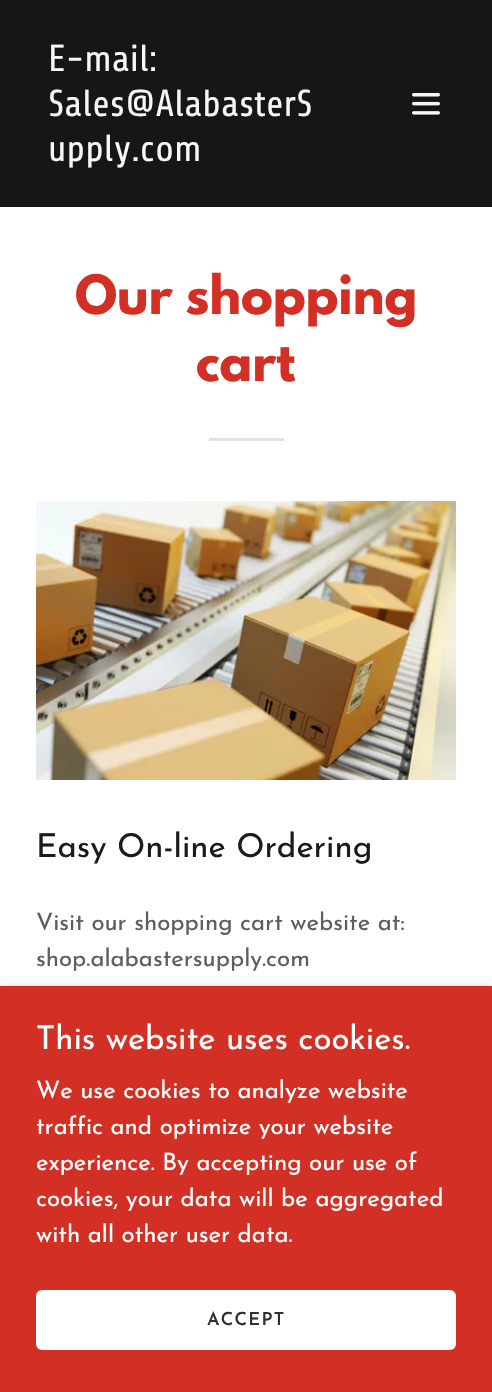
#include "include/core/SkBlurTypes.h"
#include "include/core/SkCanvas.h"
#include "include/core/SkData.h"
#include "include/core/SkFont.h"
#include "include/core/SkFontMgr.h"
#include "include/core/SkImage.h"
#include "include/core/SkMaskFilter.h"
#include "include/core/SkPaint.h"
#include "include/core/SkPathBuilder.h"
#include "include/core/SkTextBlob.h"
#include "include/effects/SkDashPathEffect.h"
#include "include/effects/SkGradientShader.h"
#include "include/utils/SkParsePath.h"

extern sk_sp<SkFontMgr> fontMgr;

void draw(SkCanvas* canvas) {
  SkPaint p;
  p.setAntiAlias(true);
  auto spacedText = [&](const char* s, float x, float y, const SkFont& font, const SkPaint& ink, float letter, float word) {
    std::vector<SkGlyphID> glyphs(font.countText(s, strlen(s), SkTextEncoding::kUTF8));
    std::vector<float> xs(glyphs.size());
    font.textToGlyphs(s, strlen(s), SkTextEncoding::kUTF8, glyphs);
    font.getXPos(glyphs, xs, x);
    float extra = 0;
    for (size_t i = 0; i < glyphs.size(); i++) {
      xs[i] += extra;
      extra += letter + word * (glyphs[i] == font.unicharToGlyph(' '));
    }
    canvas->drawTextBlob(SkTextBlob::MakeFromPosHGlyphs(glyphs, xs, y, font), 0, 0, ink);
  };
  canvas->clear(SkColorSetRGB(22, 22, 22));
  canvas->drawImageRect(SkImages::DeferredFromEncodedData(SkData::MakeFromFileName("images/1.png")), SkRect::MakeLTRB(412, 93, 440, 115), SkSamplingOptions());
  p.setColor(SK_ColorWHITE);
  canvas->drawRect(SkRect::MakeLTRB(0, 207, 492, 986), p);
  p.setColor(SkColorSetRGB(226, 226, 226));
  canvas->drawRect(SkRect::MakeLTRB(209, 438, 284, 441), p);
  canvas->drawImageRect(SkImages::DeferredFromEncodedData(SkData::MakeFromFileName("images/2.png")), SkRect::MakeLTRB(36, 501, 456, 780), SkSamplingOptions());
  p.setColor(SkColorSetARGB(77, 0, 0, 0));
  p.setMaskFilter(SkMaskFilter::MakeBlur(kNormal_SkBlurStyle, 4.5f));
  canvas->drawRect(SkRect::MakeLTRB(0, 989, 492, 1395), p);
  p.setMaskFilter(nullptr);
  p.setColor(SkColorSetRGB(210, 47, 37));
  canvas->drawRect(SkRect::MakeLTRB(0, 986, 492, 1392), p);
  p.setColor(SK_ColorWHITE);
  canvas->drawRoundRect(SkRect::MakeLTRB(36, 1290, 456, 1350), 6, 6, p);
  SkFont font1(fontMgr->matchFamilyStyle("Share", SkFontStyle::Normal()), 37.5f);
  font1.setSubpixel(true);
  p.setColor(SkColorSetRGB(247, 247, 247));
  canvas->drawString("E-mail:", 48, 71, font1, p);
  canvas->drawString("Sales@AlabasterS", 48, 116, font1, p);
  canvas->drawString("upply.com", 48, 161, font1, p);
  SkFont font2(fontMgr->matchFamilyStyle("League Spartan", SkFontStyle::Bold()), 48);
  font2.setSubpixel(true);
  p.setColor(SkColorSetRGB(210, 47, 37));
  canvas->drawString("Our shopping", 75, 314, font2, p);
  canvas->drawString("cart", 196, 381, font2, p);
  SkFont font3(fontMgr->matchFamilyStyle("Josefin Sans", SkFontStyle::Normal()), 33);
  font3.setSubpixel(true);
  p.setColor(SkColorSetRGB(27, 27, 27));
  canvas->drawString("Easy On-line Ordering", 36, 857, font3, p);
  SkFont font4(fontMgr->matchFamilyStyle("Josefin Sans", SkFontStyle::Normal()), 24);
  font4.setSubpixel(true);
  p.setColor(SkColorSetRGB(94, 94, 94));
  canvas->drawString("Visit our shopping cart website at:", 36, 930, font4, p);
  canvas->drawString("shop.alabastersupply.com", 36, 966, font4, p);
  p.setColor(SK_ColorWHITE);
  canvas->drawString("This website uses cookies.", 36, 1049, font3, p);
  canvas->drawString("We use cookies to analyze website", 36, 1098, font4, p);
  canvas->drawString("traffic and optimize your website", 36, 1134, font4, p);
  canvas->drawString("experience. By accepting our use of", 36, 1170, font4, p);
  canvas->drawString("cookies, your data will be aggregated", 36, 1206, font4, p);
  canvas->drawString("with all other user data.", 36, 1242, font4, p);
  SkFont font5(fontMgr->matchFamilyStyle("Josefin Sans", SkFontStyle(600, SkFontStyle::kNormal_Width, SkFontStyle::kUpright_Slant)), 18);
  font5.setSubpixel(true);
  p.setColor(SkColorSetRGB(48, 48, 48));
  spacedText("ACCEPT", 207, 1325, font5, p, 1.25f, 0);
}
